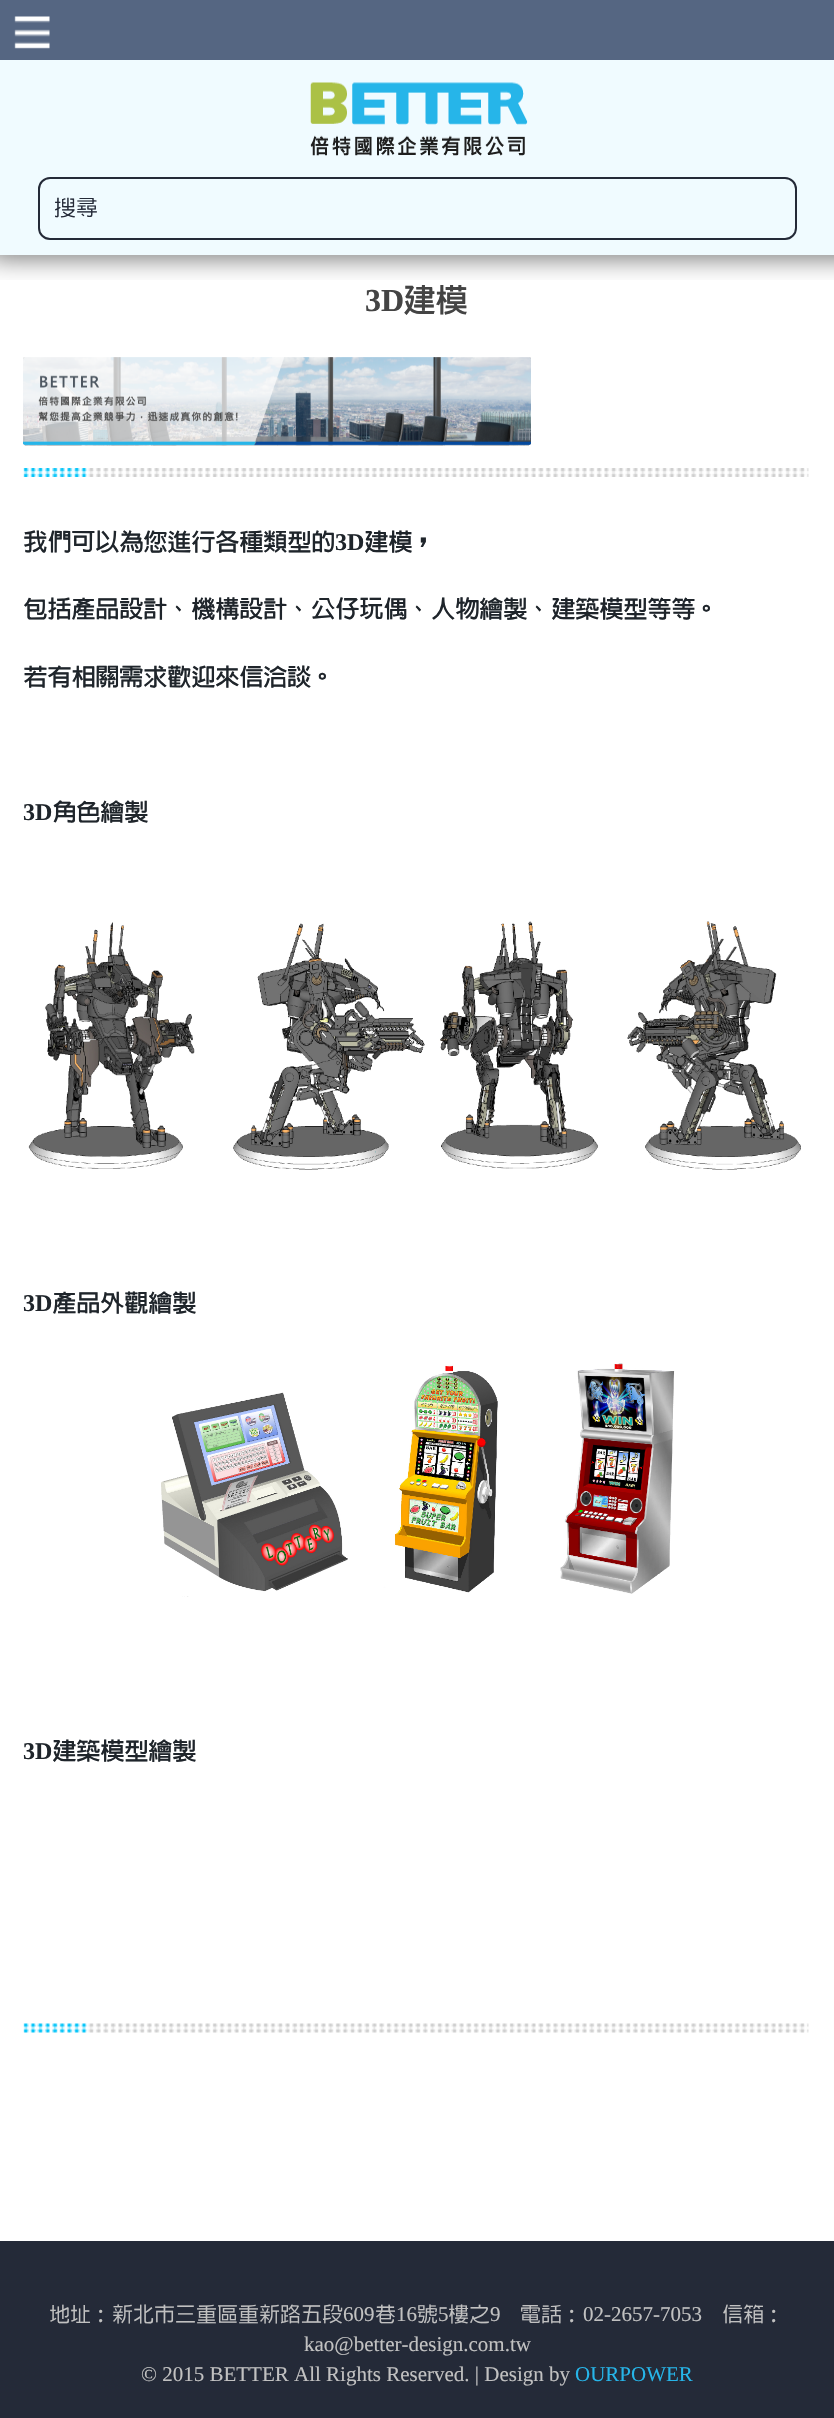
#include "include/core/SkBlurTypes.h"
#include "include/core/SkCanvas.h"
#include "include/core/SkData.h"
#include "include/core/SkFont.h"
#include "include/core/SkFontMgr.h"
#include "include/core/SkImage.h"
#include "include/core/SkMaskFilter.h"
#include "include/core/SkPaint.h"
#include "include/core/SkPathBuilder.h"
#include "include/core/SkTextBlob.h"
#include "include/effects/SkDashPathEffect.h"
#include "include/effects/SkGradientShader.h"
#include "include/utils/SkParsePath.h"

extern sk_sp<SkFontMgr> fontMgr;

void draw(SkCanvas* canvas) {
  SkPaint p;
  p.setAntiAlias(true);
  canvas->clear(SK_ColorWHITE);
  p.setColor(SkColorSetRGB(85, 102, 130));
  canvas->drawRect(SkRect::MakeLTRB(0, 0, 834, 60), p);
  canvas->drawImageRect(SkImages::DeferredFromEncodedData(SkData::MakeFromFileName("images/1.png")), SkRect::MakeLTRB(14, 16, 50, 49), SkSamplingOptions());
  p.setColor(SkColorSetRGB(240, 251, 255));
  canvas->drawRect(SkRect::MakeLTRB(0, 60, 834, 255), p);
  canvas->drawImageRect(SkImages::DeferredFromEncodedData(SkData::MakeFromFileName("images/2.png")), SkRect::MakeLTRB(310, 82, 528, 156), SkSamplingOptions());
  p.setStyle(SkPaint::kStroke_Style);
  p.setStrokeWidth(2);
  p.setColor(SkColorSetRGB(36, 42, 56));
  canvas->drawRoundRect(SkRect::MakeLTRB(39, 178, 796, 239), 11, 11, p);
  canvas->drawImageRect(SkImages::DeferredFromEncodedData(SkData::MakeFromFileName("images/3.png")), SkRect::MakeLTRB(0, 255, 834, 280), SkSamplingOptions());
  canvas->drawImageRect(SkImages::DeferredFromEncodedData(SkData::MakeFromFileName("images/4.png")), SkRect::MakeLTRB(23, 357, 531, 446), SkSamplingOptions());
  canvas->drawImageRect(SkImages::DeferredFromEncodedData(SkData::MakeFromFileName("images/5.png")), SkRect::MakeLTRB(23, 468, 809, 477), SkSamplingOptions());
  canvas->drawImageRect(SkImages::DeferredFromEncodedData(SkData::MakeFromFileName("images/6.png")), SkRect::MakeLTRB(28, 921, 801, 1170), SkSamplingOptions());
  canvas->drawImageRect(SkImages::DeferredFromEncodedData(SkData::MakeFromFileName("images/7.png")), SkRect::MakeLTRB(161, 1363, 675, 1597), SkSamplingOptions());
  canvas->drawImageRect(SkImages::DeferredFromEncodedData(SkData::MakeFromFileName("images/8.png")), SkRect::MakeLTRB(23, 2023, 809, 2033), SkSamplingOptions());
  p.setStyle(SkPaint::kFill_Style);
  canvas->drawRect(SkRect::MakeLTRB(0, 2241, 834, 2418), p);
  SkFont font1(fontMgr->matchFamilyStyle("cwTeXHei", SkFontStyle(500, SkFontStyle::kNormal_Width, SkFontStyle::kUpright_Slant)), 22);
  font1.setSubpixel(true);
  canvas->drawString("搜尋", 54, 215, font1, p);
  SkFont font2(fontMgr->matchFamilyStyle("Liberation Serif", SkFontStyle::Bold()), 32);
  font2.setSubpixel(true);
  p.setColor(SkColorSetRGB(68, 68, 68));
  canvas->drawString("3D", 365, 311, font2, p);
  SkFont font3(fontMgr->matchFamilyStyle("cwTeXHei", SkFontStyle::Bold()), 32);
  font3.setSubpixel(true);
  canvas->drawString("建模", 403, 311, font3, p);
  SkFont font4(fontMgr->matchFamilyStyle("cwTeXHei", SkFontStyle::Bold()), 24);
  font4.setSubpixel(true);
  p.setColor(SkColorSetRGB(31, 37, 43));
  canvas->drawString("我們可以為您進行各種類型的", 23, 550, font4, p);
  SkFont font5(fontMgr->matchFamilyStyle("Liberation Serif", SkFontStyle::Bold()), 24);
  font5.setSubpixel(true);
  canvas->drawString("3D", 335, 550, font5, p);
  canvas->drawString("建模，", 364, 550, font4, p);
  canvas->drawString("包括產品設計、機構設計、公仔玩偶、人物繪製、建築模型等等。", 23, 617, font4, p);
  canvas->drawString("若有相關需求歡迎來信洽談。", 23, 685, font4, p);
  canvas->drawString("3D", 23, 820, font5, p);
  canvas->drawString("角色繪製", 52, 820, font4, p);
  canvas->drawString("3D", 23, 1311, font5, p);
  canvas->drawString("產品外觀繪製", 52, 1311, font4, p);
  canvas->drawString("3D", 23, 1759, font5, p);
  canvas->drawString("建築模型繪製", 52, 1759, font4, p);
  SkFont font6(fontMgr->matchFamilyStyle("cwTeXHei", SkFontStyle(500, SkFontStyle::kNormal_Width, SkFontStyle::kUpright_Slant)), 21);
  font6.setSubpixel(true);
  p.setColor(SkColorSetRGB(193, 193, 193));
  canvas->drawString("地址：新北市三重區重新路五段", 49, 2321, font6, p);
  SkFont font7(fontMgr->matchFamilyStyle("Liberation Serif", SkFontStyle::Normal()), 21);
  font7.setSubpixel(true);
  canvas->drawString("609", 343, 2321, font7, p);
  canvas->drawString("巷", 375, 2321, font6, p);
  canvas->drawString("16", 396, 2321, font7, p);
  canvas->drawString("號", 417, 2321, font6, p);
  canvas->drawString("5", 438, 2321, font7, p);
  canvas->drawString("樓之", 448, 2321, font6, p);
  canvas->drawString("9", 490, 2321, font7, p);
  canvas->drawString("電話：", 520, 2321, font6, p);
  canvas->drawString("02-2657-7053", 583, 2321, font7, p);
  canvas->drawString("信箱：", 722, 2321, font6, p);
  canvas->drawString("kao@better-design.com.tw", 304, 2351, font7, p);
  canvas->drawString("© 2015 BETTER All Rights Reserved. | Design by", 141, 2381, font7, p);
  p.setColor(SkColorSetRGB(38, 181, 233));
  canvas->drawString("OURPOWER", 575, 2381, font7, p);
}
